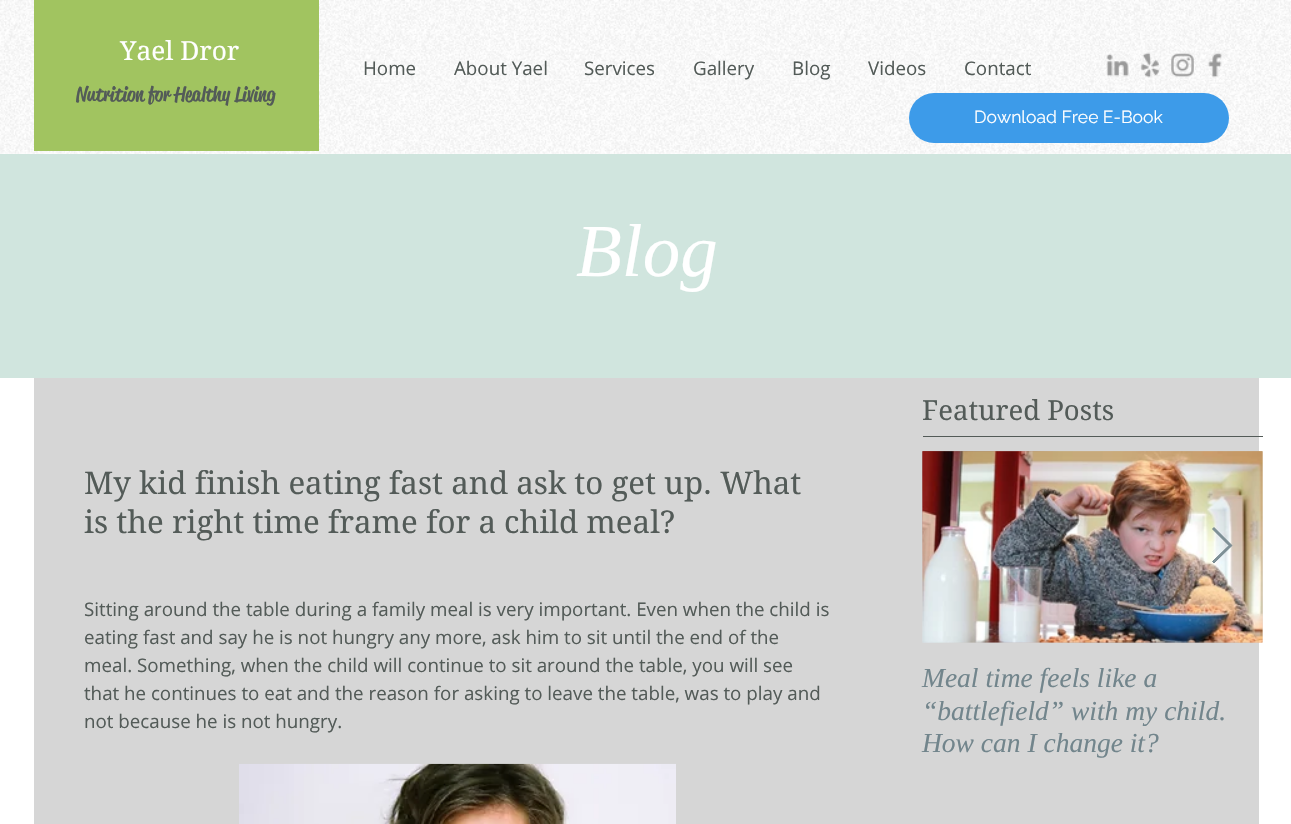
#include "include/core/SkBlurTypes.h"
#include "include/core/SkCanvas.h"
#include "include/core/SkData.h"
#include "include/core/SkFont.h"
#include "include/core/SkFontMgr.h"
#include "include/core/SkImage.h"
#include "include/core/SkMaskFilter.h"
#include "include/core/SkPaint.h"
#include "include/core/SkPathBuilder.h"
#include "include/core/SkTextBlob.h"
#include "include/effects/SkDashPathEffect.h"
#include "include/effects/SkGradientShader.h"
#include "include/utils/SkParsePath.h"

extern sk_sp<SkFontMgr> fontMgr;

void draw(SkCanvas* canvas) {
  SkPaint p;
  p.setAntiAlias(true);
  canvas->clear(SK_ColorWHITE);
  canvas->drawImageRect(SkImages::DeferredFromEncodedData(SkData::MakeFromFileName("images/1.png")), SkRect::MakeLTRB(0, 0, 1291, 154), SkSamplingOptions());
  p.setColor(SkColorSetRGB(161, 196, 96));
  canvas->drawRect(SkRect::MakeLTRB(34, 0, 319, 151), p);
  canvas->drawImageRect(SkImages::DeferredFromEncodedData(SkData::MakeFromFileName("images/2.png")), SkRect::MakeLTRB(1106, 53, 1129, 77), SkSamplingOptions());
  canvas->drawImageRect(SkImages::DeferredFromEncodedData(SkData::MakeFromFileName("images/3.png")), SkRect::MakeLTRB(1141, 52, 1160, 78), SkSamplingOptions());
  canvas->drawImageRect(SkImages::DeferredFromEncodedData(SkData::MakeFromFileName("images/4.png")), SkRect::MakeLTRB(1171, 53, 1194, 77), SkSamplingOptions());
  canvas->drawImageRect(SkImages::DeferredFromEncodedData(SkData::MakeFromFileName("images/5.png")), SkRect::MakeLTRB(1208, 53, 1222, 78), SkSamplingOptions());
  p.setColor(SkColorSetRGB(61, 155, 233));
  canvas->drawRoundRect(SkRect::MakeLTRB(909, 93, 1229, 143), 25, 25, p);
  p.setColor(SkColorSetRGB(208, 229, 222));
  canvas->drawRect(SkRect::MakeLTRB(0, 154, 1291, 378), p);
  p.setColor(SkColorSetRGB(214, 214, 214));
  canvas->drawRect(SkRect::MakeLTRB(34, 378, 1259, 824), p);
  p.setColor(SkColorSetRGB(83, 91, 88));
  canvas->drawRect(SkRect::MakeLTRB(923, 436, 1263, 437), p);
  canvas->drawImageRect(SkImages::DeferredFromEncodedData(SkData::MakeFromFileName("images/6.png")), SkRect::MakeLTRB(239, 763, 676, 824), SkSamplingOptions());
  canvas->drawImageRect(SkImages::DeferredFromEncodedData(SkData::MakeFromFileName("images/7.png")), SkRect::MakeLTRB(922, 451, 1263, 643), SkSamplingOptions());
  canvas->drawImageRect(SkImages::DeferredFromEncodedData(SkData::MakeFromFileName("images/8.png")), SkRect::MakeLTRB(922, 451, 1263, 643), SkSamplingOptions());
  p.setColor(SkColorSetARGB(230, 114, 133, 140));
  canvas->drawPath(SkPathBuilder().moveTo(1212.5f, 529).lineTo(1214, 527.5f).lineTo(1232, 545.5f).lineTo(1214, 563).lineTo(1212.5f, 561.5f).lineTo(1229, 545.5f).close().detach(), p);
  p.setStyle(SkPaint::kStroke_Style);
  p.setStrokeWidth(1);
  canvas->drawPath(SkPathBuilder().moveTo(1212.5f, 529).lineTo(1214, 527.5f).lineTo(1232, 545.5f).lineTo(1214, 563).lineTo(1212.5f, 561.5f).lineTo(1229, 545.5f).close().detach(), p);
  SkFont font1(fontMgr->matchFamilyStyle("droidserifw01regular", SkFontStyle::Normal()), 26.25f);
  font1.setSubpixel(true);
  p.setStyle(SkPaint::kFill_Style);
  p.setColor(SK_ColorWHITE);
  canvas->drawString("Yael Dror", 120, 60, font1, p);
  SkFont font2(fontMgr->matchFamilyStyle("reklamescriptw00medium", SkFontStyle(500, SkFontStyle::kNormal_Width, SkFontStyle::kUpright_Slant)), 20);
  font2.setSubpixel(true);
  p.setColor(SkColorSetRGB(83, 91, 88));
  canvas->drawString("Nutrition for Healthy Living", 76, 101, font2, p);
  SkFont font3(fontMgr->matchFamilyStyle("Open Sans", SkFontStyle::Normal()), 18.75f);
  font3.setSubpixel(true);
  canvas->drawString("Home", 363, 75, font3, p);
  canvas->drawString("About Yael", 454, 75, font3, p);
  canvas->drawString("Services", 584, 75, font3, p);
  canvas->drawString("Gallery", 693, 75, font3, p);
  canvas->drawString("Blog", 792, 75, font3, p);
  canvas->drawString("Videos", 868, 75, font3, p);
  canvas->drawString("Contact", 964, 75, font3, p);
  SkFont font4(fontMgr->matchFamilyStyle("Raleway", SkFontStyle::Normal()), 17.5f);
  font4.setSubpixel(true);
  p.setColor(SK_ColorWHITE);
  canvas->drawString("Download Free E-Book", 974, 123, font4, p);
  SkFont font5(fontMgr->matchFamilyStyle("Liberation Serif", SkFontStyle::Italic()), 75);
  font5.setSubpixel(true);
  canvas->drawString("Blog", 576, 276, font5, p);
  SkFont font6(fontMgr->matchFamilyStyle("droidserifw01regular", SkFontStyle::Normal()), 27.5f);
  font6.setSubpixel(true);
  p.setColor(SkColorSetRGB(83, 91, 88));
  canvas->drawString("Featured Posts", 922, 420, font6, p);
  SkFont font7(fontMgr->matchFamilyStyle("droidserifw01regular", SkFontStyle::Normal()), 31.25f);
  font7.setSubpixel(true);
  canvas->drawString("My kid finish eating fast and ask to get up. What", 84, 494, font7, p);
  canvas->drawString("is the right time frame for a child meal?", 84, 533, font7, p);
  canvas->drawString("Sitting around the table during a family meal is very important. Even when the child is", 84, 616, font3, p);
  canvas->drawString("eating fast and say he is not hungry any more, ask him to sit until the end of the", 84, 644, font3, p);
  canvas->drawString("meal. Something, when the child will continue to sit around the table, you will see", 84, 672, font3, p);
  canvas->drawString("that he continues to eat and the reason for asking to leave the table, was to play and", 84, 700, font3, p);
  canvas->drawString("not because he is not hungry.", 84, 728, font3, p);
  SkFont font8(fontMgr->matchFamilyStyle("Liberation Serif", SkFontStyle::Italic()), 27.5f);
  font8.setSubpixel(true);
  p.setColor(SkColorSetRGB(114, 133, 140));
  canvas->drawString("Meal time feels like a", 922, 687, font8, p);
  canvas->drawString("“battlefield” with my child.", 922, 720, font8, p);
  canvas->drawString("How can I change it?", 922, 752, font8, p);
}
